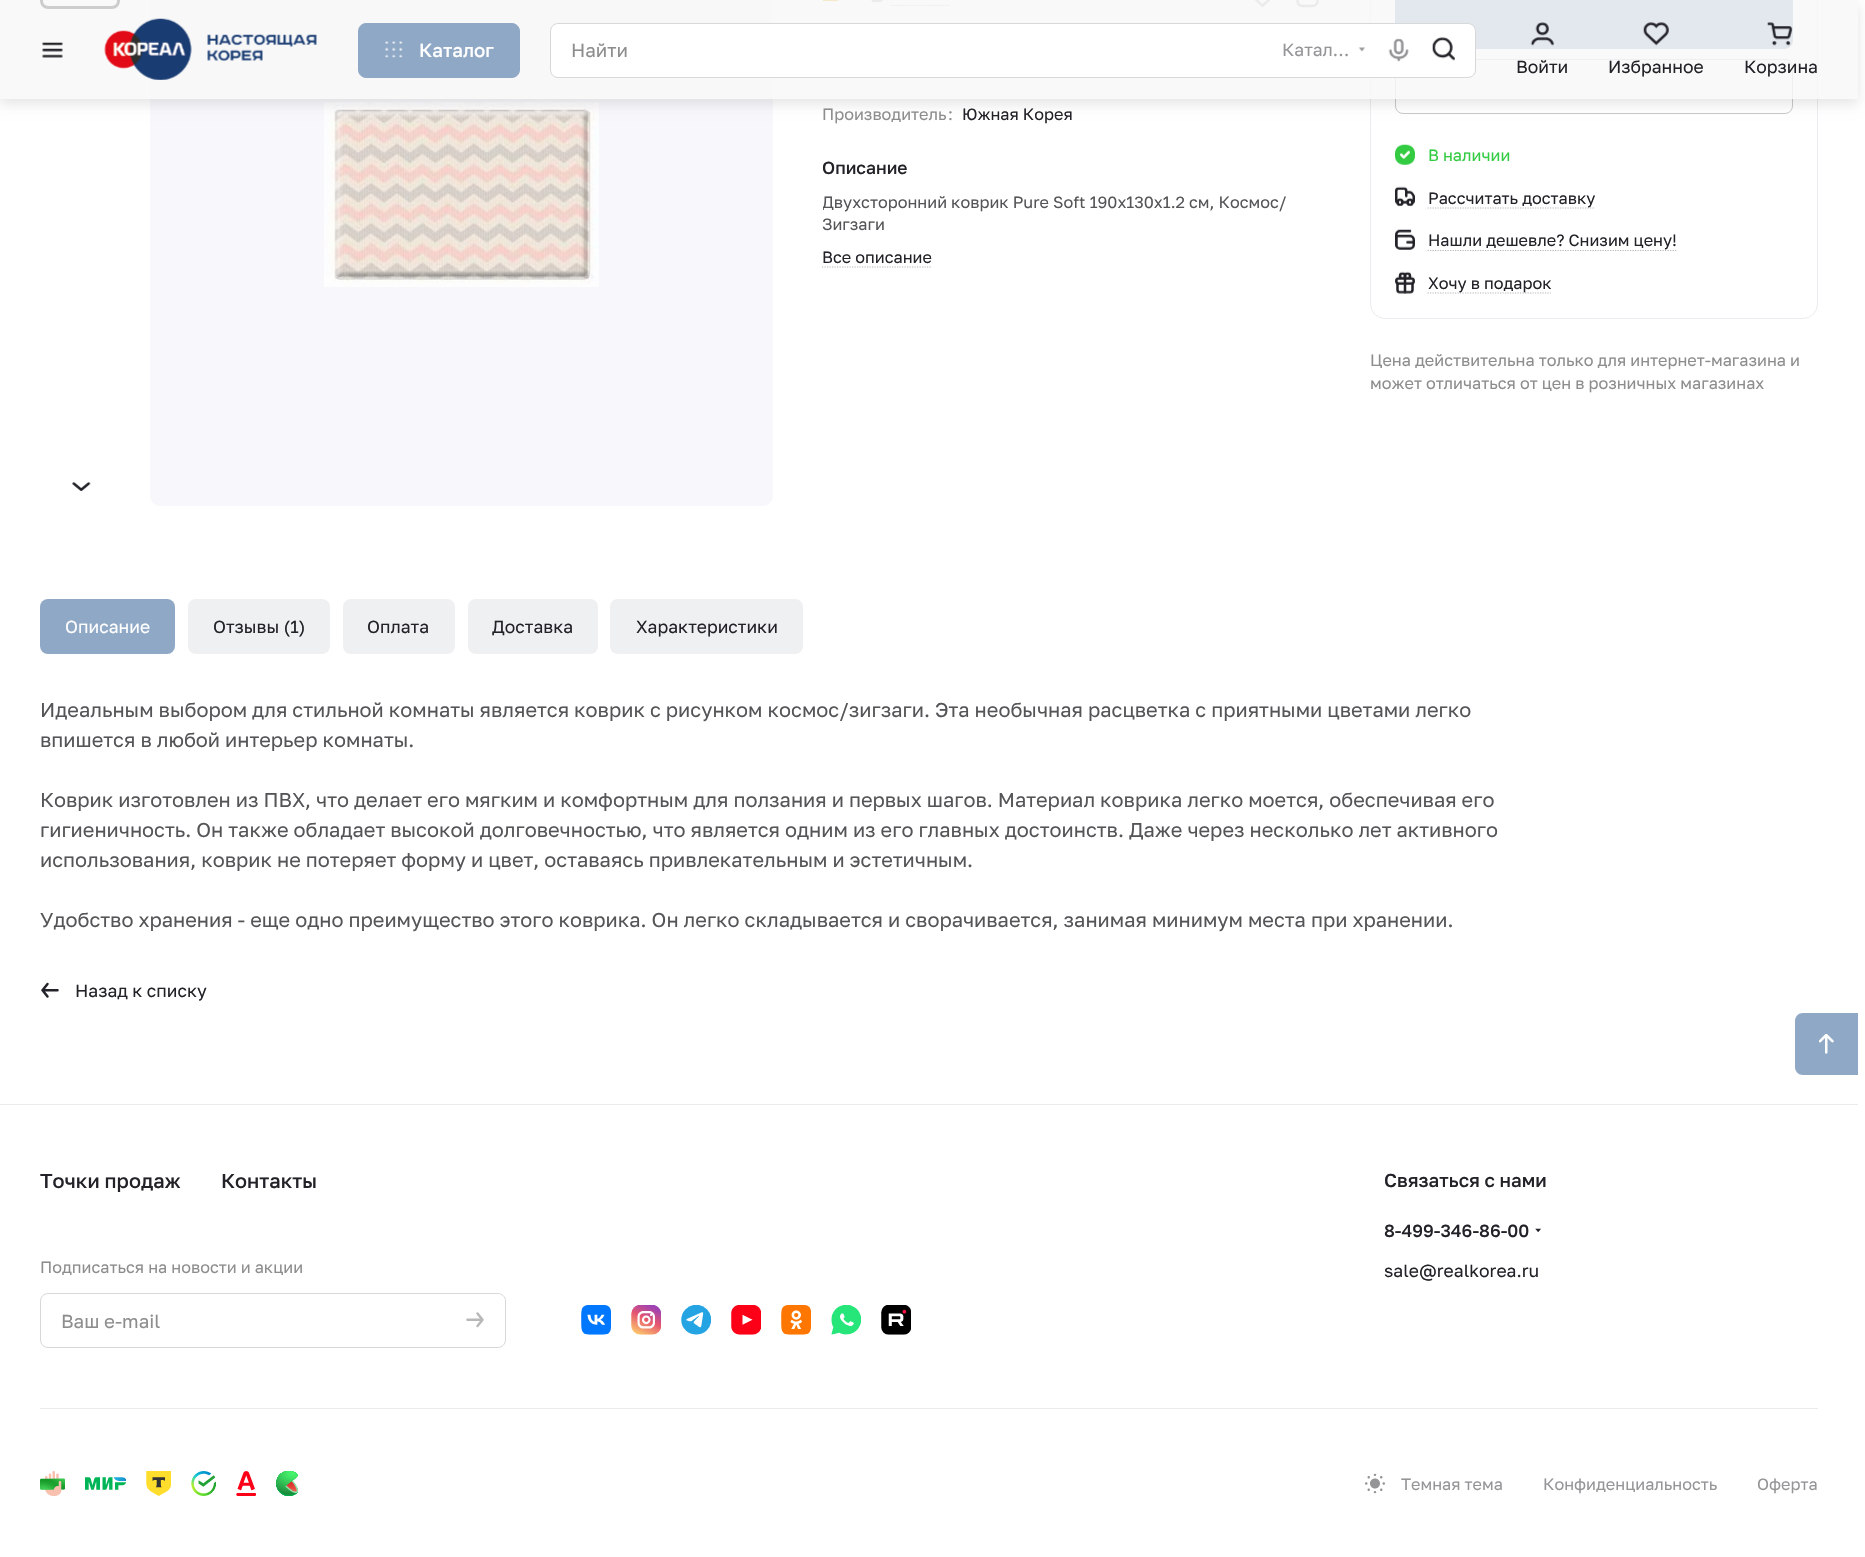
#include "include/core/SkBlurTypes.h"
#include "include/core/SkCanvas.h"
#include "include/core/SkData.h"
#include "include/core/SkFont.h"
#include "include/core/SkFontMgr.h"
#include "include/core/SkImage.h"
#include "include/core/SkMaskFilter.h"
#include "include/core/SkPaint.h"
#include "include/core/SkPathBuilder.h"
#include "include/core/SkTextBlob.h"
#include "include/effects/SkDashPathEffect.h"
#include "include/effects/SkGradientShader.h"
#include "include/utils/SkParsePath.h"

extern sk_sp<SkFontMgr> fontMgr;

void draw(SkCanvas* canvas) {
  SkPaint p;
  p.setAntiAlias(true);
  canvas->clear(SK_ColorWHITE);
  p.setStyle(SkPaint::kStroke_Style);
  p.setStrokeWidth(3);
  p.setColor(SkColorSetRGB(34, 34, 40));
  canvas->drawRoundRect(SkRect::MakeLTRB(41.5f, -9.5f, 118.5f, 7.5f), 6.5f, 6.5f, p);
  p.setStyle(SkPaint::kFill_Style);
  p.setColor(SkColorSetRGB(248, 248, 252));
  canvas->drawRoundRect(SkRect::MakeLTRB(150, -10, 773, 506), 10, 10, p);
  canvas->drawImageRect(SkImages::DeferredFromEncodedData(SkData::MakeFromFileName("images/12.png")), SkRect::MakeLTRB(825, 1, 835, 2), SkSamplingOptions());
  p.setColor(SkColorSetRGB(229, 172, 26));
  canvas->drawRect(SkRect::MakeLTRB(823, 0, 838, 1), p);
  canvas->drawImageRect(SkImages::DeferredFromEncodedData(SkData::MakeFromFileName("images/13.png")), SkRect::MakeLTRB(871, 0, 883, 3), SkSamplingOptions());
  p.setStyle(SkPaint::kStroke_Style);
  p.setStrokeWidth(1.2f);
  p.setColor(SkColorSetRGB(184, 184, 186));
  p.setPathEffect(SkDashPathEffect::Make({{1.25f, 1.25f}}, 0));
  canvas->drawPath(SkPathBuilder().moveTo(890.5f, 5.5f).lineTo(949.5f, 5.5f).detach(), p);
  p.setPathEffect(nullptr);
  canvas->drawImageRect(SkImages::DeferredFromEncodedData(SkData::MakeFromFileName("images/14.png")), SkRect::MakeLTRB(1254, 0, 1271, 8), SkSamplingOptions());
  canvas->drawImageRect(SkImages::DeferredFromEncodedData(SkData::MakeFromFileName("images/15.png")), SkRect::MakeLTRB(1296, 0, 1319, 8), SkSamplingOptions());
  p.setStrokeWidth(1);
  p.setColor(SkColorSetRGB(235, 236, 239));
  canvas->drawRoundRect(SkRect::MakeLTRB(1370.5f, -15.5f, 1817.5f, 318.5f), 14.5f, 14.5f, p);
  p.setStyle(SkPaint::kFill_Style);
  p.setColor(SkColorSetRGB(143, 168, 197));
  canvas->drawRoundRect(SkRect::MakeLTRB(1395.5f, -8.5f, 1792.5f, 48.5f), 7.5f, 7.5f, p);
  p.setStyle(SkPaint::kStroke_Style);
  canvas->drawRoundRect(SkRect::MakeLTRB(1395.5f, -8.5f, 1792.5f, 48.5f), 7.5f, 7.5f, p);
  p.setColor(SkColorSetRGB(201, 201, 202));
  canvas->drawRoundRect(SkRect::MakeLTRB(1395.5f, 59.5f, 1792.5f, 113.5f), 7.5f, 7.5f, p);
  p.setStyle(SkPaint::kFill_Style);
  p.setColor(SkColorSetARGB(204, 247, 247, 247));
  canvas->drawRect(SkRect::MakeLTRB(0, 0, 1858, 99), p);
  canvas->drawImageRect(SkImages::DeferredFromEncodedData(SkData::MakeFromFileName("images/11.png")), SkRect::MakeLTRB(324, 102, 599, 287), SkSamplingOptions());
  canvas->save();
  canvas->clipPath(SkPathBuilder(SkPathFillType::kEvenOdd).moveTo(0, 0).lineTo(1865, 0).lineTo(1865, 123).lineTo(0, 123).close().moveTo(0, 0).lineTo(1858, 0).lineTo(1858, 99).lineTo(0, 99).close().detach(), true);
  p.setColor(SkColorSetARGB(26, 0, 0, 0));
  p.setMaskFilter(SkMaskFilter::MakeBlur(kNormal_SkBlurStyle, 6));
  canvas->drawRect(SkRect::MakeLTRB(0, 5, 1858, 104), p);
  p.setMaskFilter(nullptr);
  canvas->restore();
  canvas->drawImageRect(SkImages::DeferredFromEncodedData(SkData::MakeFromFileName("images/1.png")), SkRect::MakeLTRB(42, 42, 63, 58), SkSamplingOptions());
  canvas->drawImageRect(SkImages::DeferredFromEncodedData(SkData::MakeFromFileName("images/2.png")), SkRect::MakeLTRB(104, 18, 317, 80), SkSamplingOptions());
  p.setColor(SkColorSetRGB(143, 168, 197));
  canvas->drawRoundRect(SkRect::MakeLTRB(358.5f, 23.5f, 519.5f, 77.5f), 7.5f, 7.5f, p);
  p.setStyle(SkPaint::kStroke_Style);
  canvas->drawRoundRect(SkRect::MakeLTRB(358.5f, 23.5f, 519.5f, 77.5f), 7.5f, 7.5f, p);
  canvas->drawImageRect(SkImages::DeferredFromEncodedData(SkData::MakeFromFileName("images/3.png")), SkRect::MakeLTRB(385, 41, 403, 58), SkSamplingOptions());
  p.setStyle(SkPaint::kFill_Style);
  p.setColor(SK_ColorWHITE);
  canvas->drawRoundRect(SkRect::MakeLTRB(550.5f, 23.5f, 1475.5f, 77.5f), 7.5f, 7.5f, p);
  p.setStyle(SkPaint::kStroke_Style);
  p.setColor(SkColorSetRGB(215, 216, 218));
  canvas->drawRoundRect(SkRect::MakeLTRB(550.5f, 23.5f, 1475.5f, 77.5f), 7.5f, 7.5f, p);
  canvas->drawImageRect(SkImages::DeferredFromEncodedData(SkData::MakeFromFileName("images/4.png")), SkRect::MakeLTRB(1358, 47, 1365, 52), SkSamplingOptions());
  canvas->drawImageRect(SkImages::DeferredFromEncodedData(SkData::MakeFromFileName("images/5.png")), SkRect::MakeLTRB(1388, 38, 1409, 62), SkSamplingOptions());
  canvas->drawImageRect(SkImages::DeferredFromEncodedData(SkData::MakeFromFileName("images/6.png")), SkRect::MakeLTRB(1432, 37, 1455, 61), SkSamplingOptions());
  canvas->drawImageRect(SkImages::DeferredFromEncodedData(SkData::MakeFromFileName("images/7.png")), SkRect::MakeLTRB(1530, 22, 1554, 46), SkSamplingOptions());
  canvas->drawImageRect(SkImages::DeferredFromEncodedData(SkData::MakeFromFileName("images/8.png")), SkRect::MakeLTRB(1643, 22, 1669, 46), SkSamplingOptions());
  canvas->drawImageRect(SkImages::DeferredFromEncodedData(SkData::MakeFromFileName("images/9.png")), SkRect::MakeLTRB(1767, 22, 1793, 46), SkSamplingOptions());
  canvas->drawImageRect(SkImages::DeferredFromEncodedData(SkData::MakeFromFileName("images/10.png")), SkRect::MakeLTRB(72, 482, 91, 491), SkSamplingOptions());
  p.setStrokeWidth(1.2f);
  p.setColor(SkColorSetRGB(184, 184, 186));
  p.setPathEffect(SkDashPathEffect::Make({{1.25f, 1.25f}}, 0));
  canvas->drawPath(SkPathBuilder().moveTo(822, 267).lineTo(932, 267).detach(), p);
  p.setPathEffect(nullptr);
  canvas->drawImageRect(SkImages::DeferredFromEncodedData(SkData::MakeFromFileName("images/16.png")), SkRect::MakeLTRB(1395, 144, 1415, 165), SkSamplingOptions());
  canvas->drawImageRect(SkImages::DeferredFromEncodedData(SkData::MakeFromFileName("images/17.png")), SkRect::MakeLTRB(1395, 186, 1415, 207), SkSamplingOptions());
  p.setPathEffect(SkDashPathEffect::Make({{1.25f, 1.25f}}, 0));
  canvas->drawPath(SkPathBuilder().moveTo(1427.5f, 208).lineTo(1595, 208).detach(), p);
  p.setPathEffect(nullptr);
  canvas->drawImageRect(SkImages::DeferredFromEncodedData(SkData::MakeFromFileName("images/18.png")), SkRect::MakeLTRB(1395, 229, 1415, 250), SkSamplingOptions());
  p.setPathEffect(SkDashPathEffect::Make({{1.25f, 1.25f}}, 0));
  canvas->drawPath(SkPathBuilder().moveTo(1427.5f, 250.5f).lineTo(1676.5f, 250.5f).detach(), p);
  p.setPathEffect(nullptr);
  canvas->drawImageRect(SkImages::DeferredFromEncodedData(SkData::MakeFromFileName("images/19.png")), SkRect::MakeLTRB(1395, 271, 1415, 294), SkSamplingOptions());
  p.setPathEffect(SkDashPathEffect::Make({{1.25f, 1.25f}}, 0));
  canvas->drawPath(SkPathBuilder().moveTo(1427.5f, 293).lineTo(1551, 293).detach(), p);
  p.setPathEffect(nullptr);
  p.setStyle(SkPaint::kFill_Style);
  p.setColor(SkColorSetRGB(143, 168, 197));
  canvas->drawRoundRect(SkRect::MakeLTRB(40, 599, 175, 654), 8, 8, p);
  p.setColor(SkColorSetRGB(239, 240, 242));
  canvas->drawRoundRect(SkRect::MakeLTRB(188, 599, 330, 654), 8, 8, p);
  canvas->drawRoundRect(SkRect::MakeLTRB(343, 599, 455, 654), 8, 8, p);
  canvas->drawRoundRect(SkRect::MakeLTRB(468, 599, 598, 654), 8, 8, p);
  canvas->drawRoundRect(SkRect::MakeLTRB(610, 599, 803, 654), 8, 8, p);
  canvas->drawImageRect(SkImages::DeferredFromEncodedData(SkData::MakeFromFileName("images/20.png")), SkRect::MakeLTRB(41, 982, 59, 998), SkSamplingOptions());
  p.setColor(SkColorSetRGB(235, 235, 238));
  canvas->drawRect(SkRect::MakeLTRB(0, 1104, 1858, 1105), p);
  p.setStyle(SkPaint::kStroke_Style);
  p.setStrokeWidth(1);
  p.setColor(SkColorSetRGB(215, 216, 218));
  canvas->drawRoundRect(SkRect::MakeLTRB(40.5f, 1293.5f, 505.5f, 1347.5f), 7.5f, 7.5f, p);
  p.setStyle(SkPaint::kFill_Style);
  p.setColor(SK_ColorWHITE);
  canvas->drawRoundRect(SkRect::MakeLTRB(445, 1294, 505, 1346), 8, 8, p);
  canvas->drawImageRect(SkImages::DeferredFromEncodedData(SkData::MakeFromFileName("images/21.png")), SkRect::MakeLTRB(466, 1312, 484, 1328), SkSamplingOptions());
  canvas->drawImageRect(SkImages::DeferredFromEncodedData(SkData::MakeFromFileName("images/22.png")), SkRect::MakeLTRB(581, 1305, 611, 1335), SkSamplingOptions());
  canvas->drawImageRect(SkImages::DeferredFromEncodedData(SkData::MakeFromFileName("images/23.png")), SkRect::MakeLTRB(631, 1305, 661, 1335), SkSamplingOptions());
  canvas->drawImageRect(SkImages::DeferredFromEncodedData(SkData::MakeFromFileName("images/24.png")), SkRect::MakeLTRB(681, 1305, 711, 1335), SkSamplingOptions());
  canvas->drawImageRect(SkImages::DeferredFromEncodedData(SkData::MakeFromFileName("images/25.png")), SkRect::MakeLTRB(731, 1305, 761, 1335), SkSamplingOptions());
  canvas->drawImageRect(SkImages::DeferredFromEncodedData(SkData::MakeFromFileName("images/26.png")), SkRect::MakeLTRB(781, 1305, 811, 1335), SkSamplingOptions());
  canvas->drawImageRect(SkImages::DeferredFromEncodedData(SkData::MakeFromFileName("images/27.png")), SkRect::MakeLTRB(831, 1305, 861, 1335), SkSamplingOptions());
  canvas->drawImageRect(SkImages::DeferredFromEncodedData(SkData::MakeFromFileName("images/28.png")), SkRect::MakeLTRB(881, 1305, 911, 1335), SkSamplingOptions());
  canvas->drawImageRect(SkImages::DeferredFromEncodedData(SkData::MakeFromFileName("images/29.png")), SkRect::MakeLTRB(1535, 1228, 1541, 1232), SkSamplingOptions());
  p.setColor(SkColorSetRGB(235, 235, 238));
  canvas->drawRect(SkRect::MakeLTRB(40, 1408, 1818, 1409), p);
  canvas->drawImageRect(SkImages::DeferredFromEncodedData(SkData::MakeFromFileName("images/30.png")), SkRect::MakeLTRB(40, 1471, 65, 1496), SkSamplingOptions());
  canvas->drawImageRect(SkImages::DeferredFromEncodedData(SkData::MakeFromFileName("images/31.png")), SkRect::MakeLTRB(85, 1477, 126, 1490), SkSamplingOptions());
  canvas->drawImageRect(SkImages::DeferredFromEncodedData(SkData::MakeFromFileName("images/32.png")), SkRect::MakeLTRB(146, 1471, 171, 1496), SkSamplingOptions());
  canvas->drawImageRect(SkImages::DeferredFromEncodedData(SkData::MakeFromFileName("images/33.png")), SkRect::MakeLTRB(191, 1471, 216, 1496), SkSamplingOptions());
  canvas->drawImageRect(SkImages::DeferredFromEncodedData(SkData::MakeFromFileName("images/34.png")), SkRect::MakeLTRB(236, 1471, 256, 1496), SkSamplingOptions());
  canvas->drawImageRect(SkImages::DeferredFromEncodedData(SkData::MakeFromFileName("images/35.png")), SkRect::MakeLTRB(276, 1471, 299, 1496), SkSamplingOptions());
  canvas->drawImageRect(SkImages::DeferredFromEncodedData(SkData::MakeFromFileName("images/36.png")), SkRect::MakeLTRB(1365, 1473, 1385, 1494), SkSamplingOptions());
  p.setColor(SkColorSetRGB(143, 168, 197));
  canvas->drawPath(SkPathBuilder().moveTo(1803, 1013).lineTo(1858, 1013).lineTo(1858, 1075).lineTo(1803, 1075).cubicTo(1798.5f, 1075, 1795, 1071.5f, 1795, 1067).lineTo(1795, 1021).cubicTo(1795, 1016.5f, 1798.5f, 1013, 1803, 1013).close().detach(), p);
  canvas->drawImageRect(SkImages::DeferredFromEncodedData(SkData::MakeFromFileName("images/37.png")), SkRect::MakeLTRB(1819, 1034, 1834, 1054), SkSamplingOptions());
  SkFont font1(fontMgr->matchFamilyStyle("Golos Text", SkFontStyle(500, SkFontStyle::kNormal_Width, SkFontStyle::kUpright_Slant)), 18.75f);
  font1.setSubpixel(true);
  p.setColor(SK_ColorWHITE);
  canvas->drawString("Каталог", 419, 57, font1, p);
  SkFont font2(fontMgr->matchFamilyStyle("Golos Text", SkFontStyle::Normal()), 18.75f);
  font2.setSubpixel(true);
  p.setColor(SkColorSetRGB(141, 141, 141));
  canvas->drawString("Найти", 571, 57, font2, p);
  SkFont font3(fontMgr->matchFamilyStyle("Golos Text", SkFontStyle::Normal()), 17.5f);
  font3.setSubpixel(true);
  p.setColor(SkColorSetRGB(149, 149, 152));
  canvas->drawString("Катал…", 1282, 56, font3, p);
  p.setColor(SkColorSetRGB(34, 34, 40));
  canvas->drawString("Войти", 1516, 73, font3, p);
  canvas->drawString("Избранное", 1608, 73, font3, p);
  canvas->drawString("Корзина", 1744, 73, font3, p);
  SkFont font4(fontMgr->matchFamilyStyle("Golos Text", SkFontStyle::Normal()), 16.25f);
  font4.setSubpixel(true);
  p.setColor(SkColorSetRGB(141, 141, 141));
  canvas->drawString("Производитель", 822, 120, font4, p);
  canvas->drawString(":", 948, 120, font4, p);
  p.setColor(SkColorSetRGB(34, 34, 40));
  canvas->drawString("Южная Корея", 962, 120, font4, p);
  SkFont font5(fontMgr->matchFamilyStyle("Golos Text", SkFontStyle(500, SkFontStyle::kNormal_Width, SkFontStyle::kUpright_Slant)), 17.5f);
  font5.setSubpixel(true);
  canvas->drawString("Описание", 822, 174, font5, p);
  canvas->save();
  canvas->clipRect(SkRect::MakeLTRB(823, 190, 1320, 235));
  p.setColor(SkColorSetRGB(85, 85, 88));
  canvas->drawString("Двухсторонний коврик Pure Soft 190x130x1.2 см, Космос/", 822, 208, font4, p);
  canvas->restore();
  canvas->drawString("Зигзаги", 822, 230, font4, p);
  p.setColor(SkColorSetRGB(34, 34, 40));
  canvas->drawString("Все описание", 822, 263, font4, p);
  p.setColor(SkColorSetRGB(50, 203, 65));
  canvas->drawString("В наличии", 1428, 161, font4, p);
  p.setColor(SkColorSetRGB(34, 34, 40));
  canvas->drawString("Рассчитать доставку", 1428, 204, font4, p);
  canvas->drawString("Нашли дешевле? Снизим цену!", 1428, 246, font4, p);
  canvas->drawString("Хочу в подарок", 1428, 289, font4, p);
  p.setColor(SkColorSetRGB(141, 141, 141));
  canvas->drawString("Цена действительна только для интернет-магазина и", 1370, 366, font4, p);
  canvas->drawString("может отличаться от цен в розничных магазинах", 1370, 389, font4, p);
  p.setColor(SK_ColorWHITE);
  canvas->drawString("Описание", 65, 633, font3, p);
  p.setColor(SkColorSetRGB(34, 34, 40));
  canvas->drawString("Отзывы (1)", 213, 633, font3, p);
  canvas->drawString("Оплата", 367, 633, font3, p);
  canvas->drawString("Доставка", 492, 633, font3, p);
  canvas->drawString("Характеристики", 636, 633, font3, p);
  SkFont font6(fontMgr->matchFamilyStyle("Golos Text", SkFontStyle::Normal()), 20);
  font6.setSubpixel(true);
  p.setColor(SkColorSetRGB(85, 85, 88));
  canvas->drawString("Идеальным выбором для стильной комнаты является коврик с рисунком космос/зигзаги. Эта необычная расцветка с приятными цветами легко", 40, 717, font6, p);
  canvas->drawString("впишется в любой интерьер комнаты.", 40, 747, font6, p);
  canvas->drawString("Коврик изготовлен из ПВХ, что делает его мягким и комфортным для ползания и первых шагов. Материал коврика легко моется, обеспечивая его", 40, 807, font6, p);
  canvas->drawString("гигиеничность. Он также обладает высокой долговечностью, что является одним из его главных достоинств. Даже через несколько лет активного", 40, 837, font6, p);
  canvas->drawString("использования, коврик не потеряет форму и цвет, оставаясь привлекательным и эстетичным.", 40, 867, font6, p);
  canvas->drawString("Удобство хранения - еще одно преимущество этого коврика. Он легко складывается и сворачивается, занимая минимум места при хранении.", 40, 927, font6, p);
  p.setColor(SkColorSetRGB(34, 34, 40));
  canvas->drawString("Назад к списку", 75, 997, font3, p);
  SkFont font7(fontMgr->matchFamilyStyle("Golos Text", SkFontStyle(500, SkFontStyle::kNormal_Width, SkFontStyle::kUpright_Slant)), 20);
  font7.setSubpixel(true);
  canvas->drawString("Точки продаж", 40, 1188, font7, p);
  canvas->drawString("Контакты", 221, 1188, font7, p);
  p.setColor(SkColorSetRGB(141, 141, 141));
  canvas->drawString("Подписаться на новости и акции", 40, 1273, font4, p);
  canvas->drawString("Ваш e-mail", 61, 1328, font2, p);
  p.setColor(SkColorSetRGB(34, 34, 40));
  canvas->drawString("Связаться с нами", 1384, 1187, font1, p);
  canvas->drawString("8-499-346-86-00", 1384, 1237, font5, p);
  canvas->drawString("sale@realkorea.ru", 1384, 1277, font3, p);
  p.setColor(SkColorSetRGB(149, 149, 152));
  canvas->drawString("Темная тема", 1401, 1490, font4, p);
  canvas->drawString("Конфиденциальность", 1543, 1490, font4, p);
  canvas->drawString("Оферта", 1757, 1490, font4, p);
}
